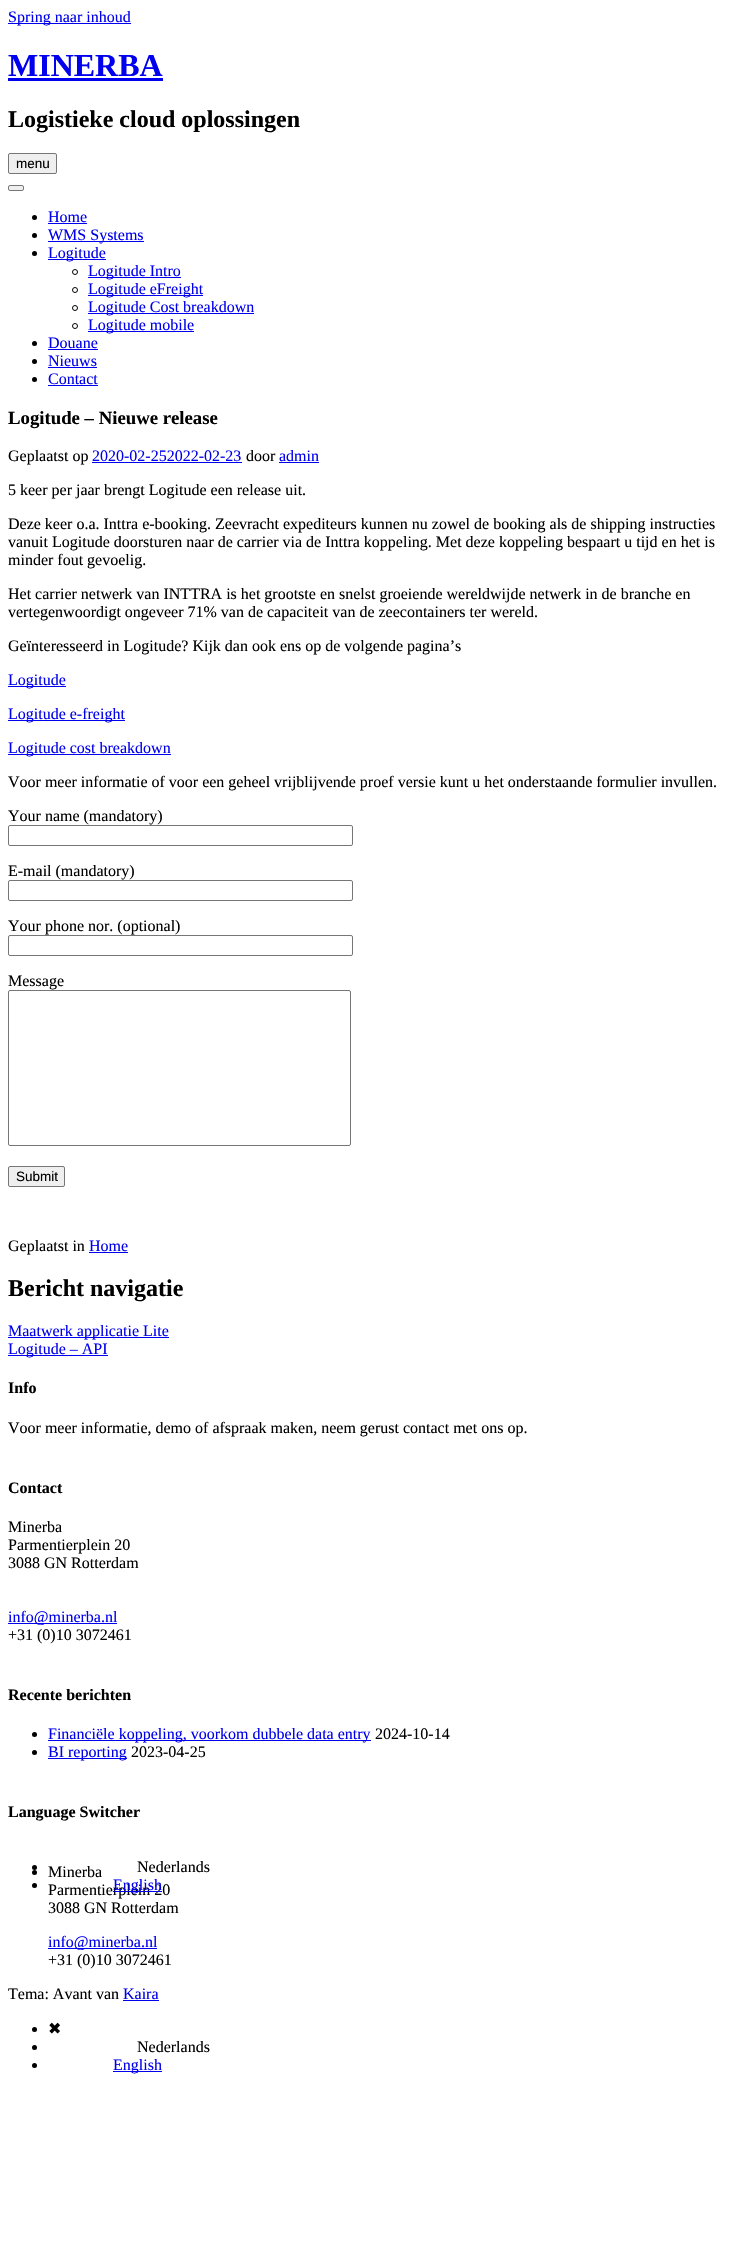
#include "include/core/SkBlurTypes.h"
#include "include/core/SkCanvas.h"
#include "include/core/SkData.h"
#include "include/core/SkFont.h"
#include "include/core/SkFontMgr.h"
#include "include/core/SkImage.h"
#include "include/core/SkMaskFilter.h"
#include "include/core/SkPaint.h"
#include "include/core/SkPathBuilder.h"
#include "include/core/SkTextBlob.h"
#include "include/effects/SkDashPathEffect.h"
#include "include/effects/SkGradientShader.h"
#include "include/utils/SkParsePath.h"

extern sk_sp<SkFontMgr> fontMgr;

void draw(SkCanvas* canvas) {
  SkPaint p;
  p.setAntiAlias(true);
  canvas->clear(SK_ColorWHITE);
  p.setColor(SkColorSetRGB(0, 0, 238));
  canvas->drawRect(SkRect::MakeLTRB(8, 23, 131, 24), p);
  canvas->drawRect(SkRect::MakeLTRB(8, 78, 163, 81), p);
  p.setColor(SkColorSetRGB(239, 239, 239));
  canvas->drawRoundRect(SkRect::MakeLTRB(8.5f, 153.5f, 56.5f, 173.5f), 1.5f, 1.5f, p);
  p.setStyle(SkPaint::kStroke_Style);
  p.setStrokeWidth(1);
  p.setColor(SkColorSetRGB(118, 118, 118));
  canvas->drawRoundRect(SkRect::MakeLTRB(8.5f, 153.5f, 56.5f, 173.5f), 1.5f, 1.5f, p);
  p.setStyle(SkPaint::kFill_Style);
  p.setColor(SkColorSetRGB(239, 239, 239));
  canvas->drawRoundRect(SkRect::MakeLTRB(8.5f, 185.5f, 23.5f, 190.5f), 1.5f, 1.5f, p);
  p.setStyle(SkPaint::kStroke_Style);
  p.setColor(SkColorSetRGB(118, 118, 118));
  canvas->drawRoundRect(SkRect::MakeLTRB(8.5f, 185.5f, 23.5f, 190.5f), 1.5f, 1.5f, p);
  p.setStyle(SkPaint::kFill_Style);
  p.setColor(SK_ColorBLACK);
  canvas->drawCircle(34.5f, 217.5f, 2.5f, p);
  p.setColor(SkColorSetRGB(0, 0, 238));
  canvas->drawRect(SkRect::MakeLTRB(48, 223, 87, 224), p);
  p.setColor(SK_ColorBLACK);
  canvas->drawCircle(34.5f, 235.5f, 2.5f, p);
  p.setColor(SkColorSetRGB(0, 0, 238));
  canvas->drawRect(SkRect::MakeLTRB(48, 241, 144, 242), p);
  p.setColor(SK_ColorBLACK);
  canvas->drawCircle(34.5f, 253.5f, 2.5f, p);
  p.setColor(SkColorSetRGB(0, 0, 238));
  canvas->drawRect(SkRect::MakeLTRB(48, 259, 106, 260), p);
  p.setStyle(SkPaint::kStroke_Style);
  p.setColor(SK_ColorBLACK);
  canvas->drawCircle(75, 272, 2.5f, p);
  p.setStyle(SkPaint::kFill_Style);
  p.setColor(SkColorSetRGB(0, 0, 238));
  canvas->drawRect(SkRect::MakeLTRB(88, 277, 181, 278), p);
  p.setStyle(SkPaint::kStroke_Style);
  p.setColor(SK_ColorBLACK);
  canvas->drawCircle(75, 290, 2.5f, p);
  p.setStyle(SkPaint::kFill_Style);
  p.setColor(SkColorSetRGB(0, 0, 238));
  canvas->drawRect(SkRect::MakeLTRB(88, 295, 203, 296), p);
  p.setStyle(SkPaint::kStroke_Style);
  p.setColor(SK_ColorBLACK);
  canvas->drawCircle(75, 308, 2.5f, p);
  p.setStyle(SkPaint::kFill_Style);
  p.setColor(SkColorSetRGB(0, 0, 238));
  canvas->drawRect(SkRect::MakeLTRB(88, 313, 254, 314), p);
  p.setStyle(SkPaint::kStroke_Style);
  p.setColor(SK_ColorBLACK);
  canvas->drawCircle(75, 326, 2.5f, p);
  p.setStyle(SkPaint::kFill_Style);
  p.setColor(SkColorSetRGB(0, 0, 238));
  canvas->drawRect(SkRect::MakeLTRB(88, 331, 194, 332), p);
  p.setColor(SK_ColorBLACK);
  canvas->drawCircle(34.5f, 343.5f, 2.5f, p);
  p.setColor(SkColorSetRGB(0, 0, 238));
  canvas->drawRect(SkRect::MakeLTRB(48, 349, 98, 350), p);
  p.setColor(SK_ColorBLACK);
  canvas->drawCircle(34.5f, 361.5f, 2.5f, p);
  p.setColor(SkColorSetRGB(0, 0, 238));
  canvas->drawRect(SkRect::MakeLTRB(48, 367, 97, 368), p);
  p.setColor(SK_ColorBLACK);
  canvas->drawCircle(34.5f, 379.5f, 2.5f, p);
  p.setColor(SkColorSetRGB(0, 0, 238));
  canvas->drawRect(SkRect::MakeLTRB(48, 385, 98, 386), p);
  canvas->drawRect(SkRect::MakeLTRB(92, 462, 242, 463), p);
  canvas->drawRect(SkRect::MakeLTRB(279, 462, 319, 463), p);
  canvas->drawRect(SkRect::MakeLTRB(8, 686, 66, 687), p);
  canvas->drawRect(SkRect::MakeLTRB(8, 720, 125, 721), p);
  canvas->drawRect(SkRect::MakeLTRB(8, 754, 171, 755), p);
  p.setStyle(SkPaint::kStroke_Style);
  p.setColor(SkColorSetRGB(118, 118, 118));
  canvas->drawRoundRect(SkRect::MakeLTRB(8.5f, 825.5f, 352.5f, 845.5f), 1.5f, 1.5f, p);
  canvas->drawRoundRect(SkRect::MakeLTRB(8.5f, 880.5f, 352.5f, 900.5f), 1.5f, 1.5f, p);
  canvas->drawRoundRect(SkRect::MakeLTRB(8.5f, 935.5f, 352.5f, 955.5f), 1.5f, 1.5f, p);
  canvas->drawRoundRect(SkRect::MakeLTRB(8.5f, 990.5f, 350.5f, 1145.5f), 1.5f, 1.5f, p);
  p.setStyle(SkPaint::kFill_Style);
  p.setColor(SkColorSetRGB(239, 239, 239));
  canvas->drawRoundRect(SkRect::MakeLTRB(8.5f, 1166.5f, 64.5f, 1186.5f), 1.5f, 1.5f, p);
  p.setStyle(SkPaint::kStroke_Style);
  p.setColor(SkColorSetRGB(118, 118, 118));
  canvas->drawRoundRect(SkRect::MakeLTRB(8.5f, 1166.5f, 64.5f, 1186.5f), 1.5f, 1.5f, p);
  p.setStyle(SkPaint::kFill_Style);
  p.setColor(SkColorSetRGB(0, 0, 238));
  canvas->drawRect(SkRect::MakeLTRB(89, 1252, 128, 1253), p);
  canvas->drawRect(SkRect::MakeLTRB(8, 1337, 169, 1338), p);
  canvas->drawRect(SkRect::MakeLTRB(8, 1355, 108, 1356), p);
  canvas->drawRect(SkRect::MakeLTRB(8, 1623, 117, 1624), p);
  p.setColor(SK_ColorBLACK);
  canvas->drawCircle(34.5f, 1734.5f, 2.5f, p);
  p.setColor(SkColorSetRGB(0, 0, 238));
  canvas->drawRect(SkRect::MakeLTRB(48, 1740, 371, 1741), p);
  p.setColor(SK_ColorBLACK);
  canvas->drawCircle(34.5f, 1752.5f, 2.5f, p);
  p.setColor(SkColorSetRGB(0, 0, 238));
  canvas->drawRect(SkRect::MakeLTRB(48, 1758, 127, 1759), p);
  p.setColor(SK_ColorBLACK);
  canvas->drawCircle(34.5f, 1867.5f, 2.5f, p);
  canvas->drawCircle(34.5f, 1885.5f, 2.5f, p);
  canvas->drawCircle(34.5f, 1872.5f, 2.5f, p);
  p.setColor(SkColorSetRGB(0, 0, 238));
  canvas->drawRect(SkRect::MakeLTRB(48, 1948, 157, 1949), p);
  canvas->drawRect(SkRect::MakeLTRB(123, 2000, 159, 2001), p);
  p.setColor(SK_ColorBLACK);
  canvas->drawCircle(34.5f, 2029.5f, 2.5f, p);
  canvas->drawCircle(34.5f, 2047.5f, 2.5f, p);
  canvas->drawCircle(34.5f, 2065.5f, 2.5f, p);
  p.setColor(SkColorSetRGB(0, 0, 238));
  canvas->drawRect(SkRect::MakeLTRB(113, 2071, 162, 2072), p);
  SkFont font1(fontMgr->matchFamilyStyle("Liberation Serif", SkFontStyle::Normal()), 16);
  font1.setSubpixel(true);
  canvas->drawString("Spring naar inhoud", 8, 22, font1, p);
  SkFont font2(fontMgr->matchFamilyStyle("Liberation Serif", SkFontStyle::Bold()), 32);
  font2.setSubpixel(true);
  canvas->drawString("MINERBA", 8, 76, font2, p);
  SkFont font3(fontMgr->matchFamilyStyle("Liberation Serif", SkFontStyle::Bold()), 24);
  font3.setSubpixel(true);
  p.setColor(SK_ColorBLACK);
  canvas->drawString("Logistieke cloud oplossingen", 8, 127, font3, p);
  SkFont font4(fontMgr->matchFamilyStyle("Liberation Sans", SkFontStyle::Normal()), 13.5f);
  font4.setSubpixel(true);
  canvas->drawString("menu", 16, 168, font4, p);
  p.setColor(SkColorSetRGB(0, 0, 238));
  canvas->drawString("Home", 48, 222, font1, p);
  canvas->drawString("WMS Systems", 48, 240, font1, p);
  canvas->drawString("Logitude", 48, 258, font1, p);
  canvas->drawString("Logitude Intro", 88, 276, font1, p);
  canvas->drawString("Logitude eFreight", 88, 294, font1, p);
  canvas->drawString("Logitude Cost breakdown", 88, 312, font1, p);
  canvas->drawString("Logitude mobile", 88, 330, font1, p);
  canvas->drawString("Douane", 48, 348, font1, p);
  canvas->drawString("Nieuws", 48, 366, font1, p);
  canvas->drawString("Contact", 48, 384, font1, p);
  SkFont font5(fontMgr->matchFamilyStyle("Liberation Serif", SkFontStyle::Bold()), 18.75f);
  font5.setSubpixel(true);
  p.setColor(SK_ColorBLACK);
  canvas->drawString("Logitude – Nieuwe release", 8, 424, font5, p);
  canvas->drawString("Geplaatst op", 8, 461, font1, p);
  p.setColor(SkColorSetRGB(0, 0, 238));
  canvas->drawString("2020-02-252022-02-23", 92, 461, font1, p);
  p.setColor(SK_ColorBLACK);
  canvas->drawString("door", 246, 461, font1, p);
  p.setColor(SkColorSetRGB(0, 0, 238));
  canvas->drawString("admin", 279, 461, font1, p);
  p.setColor(SK_ColorBLACK);
  canvas->drawString("5 keer per jaar brengt Logitude een release uit.", 8, 495, font1, p);
  canvas->drawString("Deze keer o.a. Inttra e-booking. Zeevracht expediteurs kunnen nu zowel de booking als de shipping instructies", 8, 529, font1, p);
  canvas->drawString("vanuit Logitude doorsturen naar de carrier via de Inttra koppeling. Met deze koppeling bespaart u tijd en het is", 8, 547, font1, p);
  canvas->drawString("minder fout gevoelig.", 8, 565, font1, p);
  canvas->drawString("Het carrier netwerk van INTTRA is het grootste en snelst groeiende wereldwijde netwerk in de branche en", 8, 599, font1, p);
  canvas->drawString("vertegenwoordigt ongeveer 71% van de capaciteit van de zeecontainers ter wereld.", 8, 617, font1, p);
  canvas->drawString("Geïnteresseerd in Logitude? Kijk dan ook ens op de volgende pagina’s", 8, 651, font1, p);
  p.setColor(SkColorSetRGB(0, 0, 238));
  canvas->drawString("Logitude", 8, 685, font1, p);
  canvas->drawString("Logitude e-freight", 8, 719, font1, p);
  canvas->drawString("Logitude cost breakdown", 8, 753, font1, p);
  p.setColor(SK_ColorBLACK);
  canvas->drawString("Voor meer informatie of voor een geheel vrijblijvende proef versie kunt u het onderstaande formulier invullen.", 8, 787, font1, p);
  canvas->drawString("Your name (mandatory)", 8, 821, font1, p);
  canvas->drawString("E-mail (mandatory)", 8, 876, font1, p);
  canvas->drawString("Your phone nor. (optional)", 8, 931, font1, p);
  canvas->drawString("Message", 8, 986, font1, p);
  canvas->drawString("Submit", 16, 1181, font4, p);
  canvas->drawString("Geplaatst in", 8, 1251, font1, p);
  p.setColor(SkColorSetRGB(0, 0, 238));
  canvas->drawString("Home", 89, 1251, font1, p);
  p.setColor(SK_ColorBLACK);
  canvas->drawString("Bericht navigatie", 8, 1296, font3, p);
  p.setColor(SkColorSetRGB(0, 0, 238));
  canvas->drawString("Maatwerk applicatie Lite", 8, 1336, font1, p);
  canvas->drawString("Logitude – API", 8, 1354, font1, p);
  SkFont font6(fontMgr->matchFamilyStyle("Liberation Serif", SkFontStyle::Bold()), 16);
  font6.setSubpixel(true);
  p.setColor(SK_ColorBLACK);
  canvas->drawString("Info", 8, 1393, font6, p);
  canvas->drawString("Voor meer informatie, demo of afspraak maken, neem gerust contact met ons op.", 8, 1433, font1, p);
  canvas->drawString("Contact", 8, 1493, font6, p);
  canvas->drawString("Minerba", 8, 1532, font1, p);
  canvas->drawString("Parmentierplein 20", 8, 1550, font1, p);
  canvas->drawString("3088 GN Rotterdam", 8, 1568, font1, p);
  p.setColor(SkColorSetRGB(0, 0, 238));
  canvas->drawString("info@minerba.nl", 8, 1622, font1, p);
  p.setColor(SK_ColorBLACK);
  canvas->drawString("+31 (0)10 3072461", 8, 1640, font1, p);
  canvas->drawString("Recente berichten", 8, 1700, font6, p);
  p.setColor(SkColorSetRGB(0, 0, 238));
  canvas->drawString("Financiële koppeling, voorkom dubbele data entry", 48, 1739, font1, p);
  p.setColor(SK_ColorBLACK);
  canvas->drawString("2024-10-14", 375, 1739, font1, p);
  p.setColor(SkColorSetRGB(0, 0, 238));
  canvas->drawString("BI reporting", 48, 1757, font1, p);
  p.setColor(SK_ColorBLACK);
  canvas->drawString("2023-04-25", 131, 1757, font1, p);
  canvas->drawString("Language Switcher", 8, 1817, font6, p);
  canvas->drawString("Nederlands", 137, 1872, font1, p);
  canvas->drawString("Minerba", 48, 1877, font1, p);
  canvas->drawString("Parmentierplein 20", 48, 1895, font1, p);
  p.setColor(SkColorSetRGB(0, 0, 238));
  canvas->drawRect(SkRect::MakeLTRB(113, 1891, 162, 1892), p);
  canvas->drawString("English", 113, 1890, font1, p);
  p.setColor(SK_ColorBLACK);
  canvas->drawString("3088 GN Rotterdam", 48, 1913, font1, p);
  p.setColor(SkColorSetRGB(0, 0, 238));
  canvas->drawString("info@minerba.nl", 48, 1947, font1, p);
  p.setColor(SK_ColorBLACK);
  canvas->drawString("+31 (0)10 3072461", 48, 1965, font1, p);
  canvas->drawString("Tema: Avant van", 8, 1999, font1, p);
  p.setColor(SkColorSetRGB(0, 0, 238));
  canvas->drawString("Kaira", 123, 1999, font1, p);
  SkFont font7(fontMgr->matchFamilyStyle("DejaVu Sans", SkFontStyle::Normal()), 16);
  font7.setSubpixel(true);
  p.setColor(SK_ColorBLACK);
  canvas->drawString("✖", 48, 2034, font7, p);
  canvas->drawString("Nederlands", 137, 2052, font1, p);
  p.setColor(SkColorSetRGB(0, 0, 238));
  canvas->drawString("English", 113, 2070, font1, p);
}
